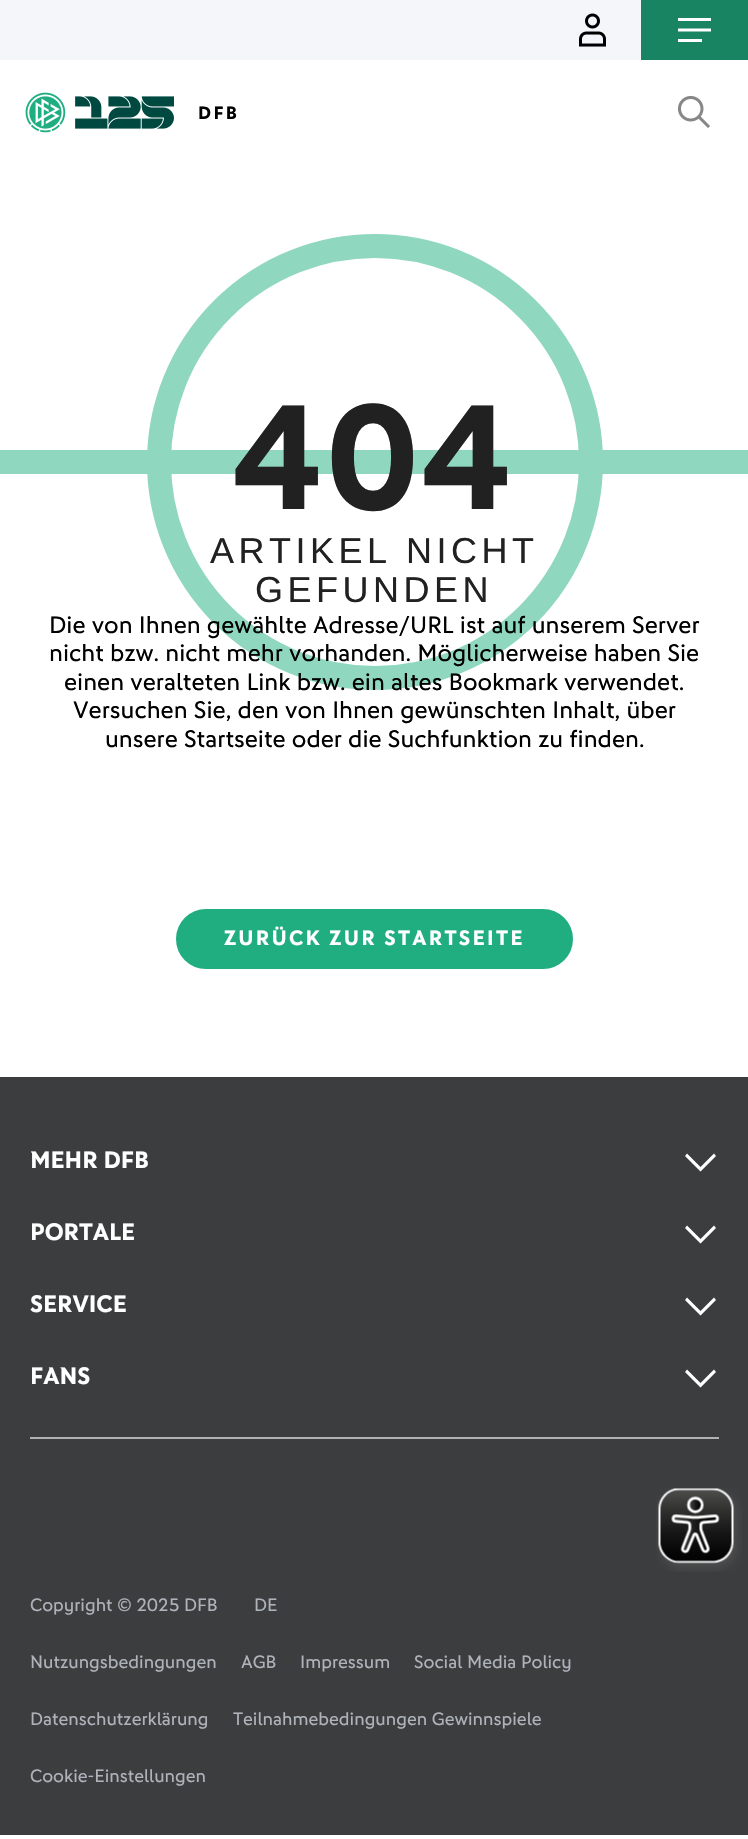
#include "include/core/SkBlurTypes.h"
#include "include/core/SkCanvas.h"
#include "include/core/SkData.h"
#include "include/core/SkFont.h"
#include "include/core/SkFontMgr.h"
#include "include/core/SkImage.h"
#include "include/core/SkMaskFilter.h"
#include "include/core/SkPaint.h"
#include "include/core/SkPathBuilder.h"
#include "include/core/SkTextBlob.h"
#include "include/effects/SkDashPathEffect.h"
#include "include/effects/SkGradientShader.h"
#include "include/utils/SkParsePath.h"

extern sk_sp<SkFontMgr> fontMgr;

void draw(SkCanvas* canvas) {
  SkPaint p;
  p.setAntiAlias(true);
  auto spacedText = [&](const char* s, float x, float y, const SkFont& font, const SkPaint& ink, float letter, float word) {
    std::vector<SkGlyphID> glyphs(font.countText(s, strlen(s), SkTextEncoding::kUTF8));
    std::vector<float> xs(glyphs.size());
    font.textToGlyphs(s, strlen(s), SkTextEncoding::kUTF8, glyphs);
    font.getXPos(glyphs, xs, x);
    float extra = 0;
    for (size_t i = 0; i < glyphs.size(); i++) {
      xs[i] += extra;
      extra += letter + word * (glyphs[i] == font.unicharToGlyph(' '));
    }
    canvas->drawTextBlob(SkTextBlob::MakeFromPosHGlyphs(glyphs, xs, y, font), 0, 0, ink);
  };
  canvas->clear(SK_ColorWHITE);
  p.setColor(SkColorSetRGB(245, 246, 250));
  canvas->drawRect(SkRect::MakeLTRB(0, 0, 641, 60), p);
  canvas->drawImageRect(SkImages::DeferredFromEncodedData(SkData::MakeFromFileName("images/1.png")), SkRect::MakeLTRB(579, 13, 606, 47), SkSamplingOptions());
  p.setColor(SkColorSetRGB(24, 132, 97));
  canvas->drawRect(SkRect::MakeLTRB(641, 0, 748, 60), p);
  p.setColor(SK_ColorWHITE);
  canvas->drawPath(SkPathBuilder(SkPathFillType::kEvenOdd).moveTo(678, 18).lineTo(678, 21).lineTo(711, 21).lineTo(711, 18).close().moveTo(678, 31.5f).lineTo(711, 31.5f).lineTo(711, 28.5f).lineTo(678, 28.5f).close().moveTo(678, 42).lineTo(702, 42).lineTo(702, 39).lineTo(678, 39).close().detach(), p);
  canvas->drawImageRect(SkImages::DeferredFromEncodedData(SkData::MakeFromFileName("images/2.png")), SkRect::MakeLTRB(25, 92, 174, 133), SkSamplingOptions());
  canvas->drawImageRect(SkImages::DeferredFromEncodedData(SkData::MakeFromFileName("images/3.png")), SkRect::MakeLTRB(677, 95, 710, 128), SkSamplingOptions());
  p.setColor(SkColorSetRGB(144, 215, 192));
  canvas->drawRect(SkRect::MakeLTRB(0, 450, 748, 474), p);
  p.setStyle(SkPaint::kStroke_Style);
  p.setStrokeWidth(24);
  canvas->drawCircle(375, 462, 216, p);
  p.setStyle(SkPaint::kFill_Style);
  p.setColor(SkColorSetRGB(32, 174, 128));
  canvas->drawRoundRect(SkRect::MakeLTRB(177.5f, 910.5f, 571.5f, 967.5f), 28.5f, 28.5f, p);
  p.setStyle(SkPaint::kStroke_Style);
  p.setStrokeWidth(3);
  canvas->drawRoundRect(SkRect::MakeLTRB(177.5f, 910.5f, 571.5f, 967.5f), 28.5f, 28.5f, p);
  p.setStyle(SkPaint::kFill_Style);
  p.setColor(SkColorSetRGB(59, 61, 63));
  canvas->drawRect(SkRect::MakeLTRB(0, 1077, 748, 1835), p);
  p.setColor(SK_ColorWHITE);
  canvas->drawPath(SkPathBuilder(SkPathFillType::kEvenOdd).moveTo(700.5f, 1171.5f).lineTo(685, 1156).lineTo(687, 1153.5f).lineTo(700.5f, 1167).lineTo(714, 1153.5f).lineTo(716, 1156).close().detach(), p);
  canvas->drawPath(SkPathBuilder(SkPathFillType::kEvenOdd).moveTo(700.5f, 1243.5f).lineTo(685, 1228).lineTo(687, 1225.5f).lineTo(700.5f, 1239).lineTo(714, 1225.5f).lineTo(716, 1228).close().detach(), p);
  canvas->drawPath(SkPathBuilder(SkPathFillType::kEvenOdd).moveTo(700.5f, 1315.5f).lineTo(685, 1300).lineTo(687, 1297.5f).lineTo(700.5f, 1311).lineTo(714, 1297.5f).lineTo(716, 1300).close().detach(), p);
  canvas->drawPath(SkPathBuilder(SkPathFillType::kEvenOdd).moveTo(700.5f, 1387.5f).lineTo(685, 1372).lineTo(687, 1369.5f).lineTo(700.5f, 1383).lineTo(714, 1369.5f).lineTo(716, 1372).close().detach(), p);
  p.setColor(SkColorSetRGB(177, 177, 178));
  canvas->drawRect(SkRect::MakeLTRB(30, 1437, 719, 1439), p);
  canvas->drawImageRect(SkImages::DeferredFromEncodedData(SkData::MakeFromFileName("images/4.png")), SkRect::MakeLTRB(656, 1488, 742, 1572), SkSamplingOptions());
  SkFont font1(fontMgr->matchFamilyStyle("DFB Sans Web", SkFontStyle::Bold()), 18);
  font1.setSubpixel(true);
  p.setColor(SK_ColorBLACK);
  spacedText("DFB", 198, 119, font1, p, 2.5f, 0);
  SkFont font2(fontMgr->matchFamilyStyle("DFB Sans Web", SkFontStyle::Bold()), 150);
  font2.setSubpixel(true);
  p.setColor(SkColorSetRGB(33, 33, 33));
  spacedText("404", 233, 509, font2, p, 4.5f, 0);
  SkFont font3(fontMgr->matchFamilyStyle("Liberation Sans", SkFontStyle::Normal()), 36);
  font3.setSubpixel(true);
  spacedText("ARTIKEL NICHT", 210, 563, font3, p, 4.5f, 0);
  spacedText("GEFUNDEN", 255, 602, font3, p, 4.5f, 0);
  SkFont font4(fontMgr->matchFamilyStyle("DFB Sans Web", SkFontStyle::Normal()), 24);
  font4.setSubpixel(true);
  p.setColor(SK_ColorBLACK);
  canvas->drawString("Die von Ihnen gewählte Adresse/URL ist auf unserem Server", 49, 633, font4, p);
  canvas->drawString("nicht bzw. nicht mehr vorhanden. Möglicherweise haben Sie", 49, 661, font4, p);
  canvas->drawString("einen veralteten Link bzw. ein altes Bookmark verwendet.", 64, 690, font4, p);
  canvas->drawString("Versuchen Sie, den von Ihnen gewünschten Inhalt, über", 73, 718, font4, p);
  canvas->drawString("unsere Startseite oder die Suchfunktion zu finden.", 105, 747, font4, p);
  SkFont font5(fontMgr->matchFamilyStyle("DFB Sans Web", SkFontStyle::Bold()), 21);
  font5.setSubpixel(true);
  p.setColor(SK_ColorWHITE);
  spacedText("ZURÜCK ZUR STARTSEITE", 224, 945, font5, p, 2.25f, 0);
  SkFont font6(fontMgr->matchFamilyStyle("DFB Sans Web", SkFontStyle::Bold()), 24);
  font6.setSubpixel(true);
  canvas->drawString("MEHR DFB", 30, 1168, font6, p);
  canvas->drawString("PORTALE", 30, 1240, font6, p);
  canvas->drawString("SERVICE", 30, 1312, font6, p);
  canvas->drawString("FANS", 30, 1384, font6, p);
  SkFont font7(fontMgr->matchFamilyStyle("DFB Sans Web", SkFontStyle::Normal()), 18);
  font7.setSubpixel(true);
  p.setColor(SkColorSetRGB(174, 179, 186));
  canvas->drawString("Copyright © 2025 DFB", 30, 1611, font7, p);
  canvas->drawString("DE", 254, 1611, font7, p);
  canvas->drawString("Nutzungsbedingungen", 30, 1668, font7, p);
  canvas->drawString("AGB", 241, 1668, font7, p);
  canvas->drawString("Impressum", 300, 1668, font7, p);
  canvas->drawString("Social Media Policy", 414, 1668, font7, p);
  canvas->drawString("Datenschutzerklärung", 30, 1725, font7, p);
  canvas->drawString("Teilnahmebedingungen Gewinnspiele", 233, 1725, font7, p);
  canvas->drawString("Cookie-Einstellungen", 30, 1782, font7, p);
}
